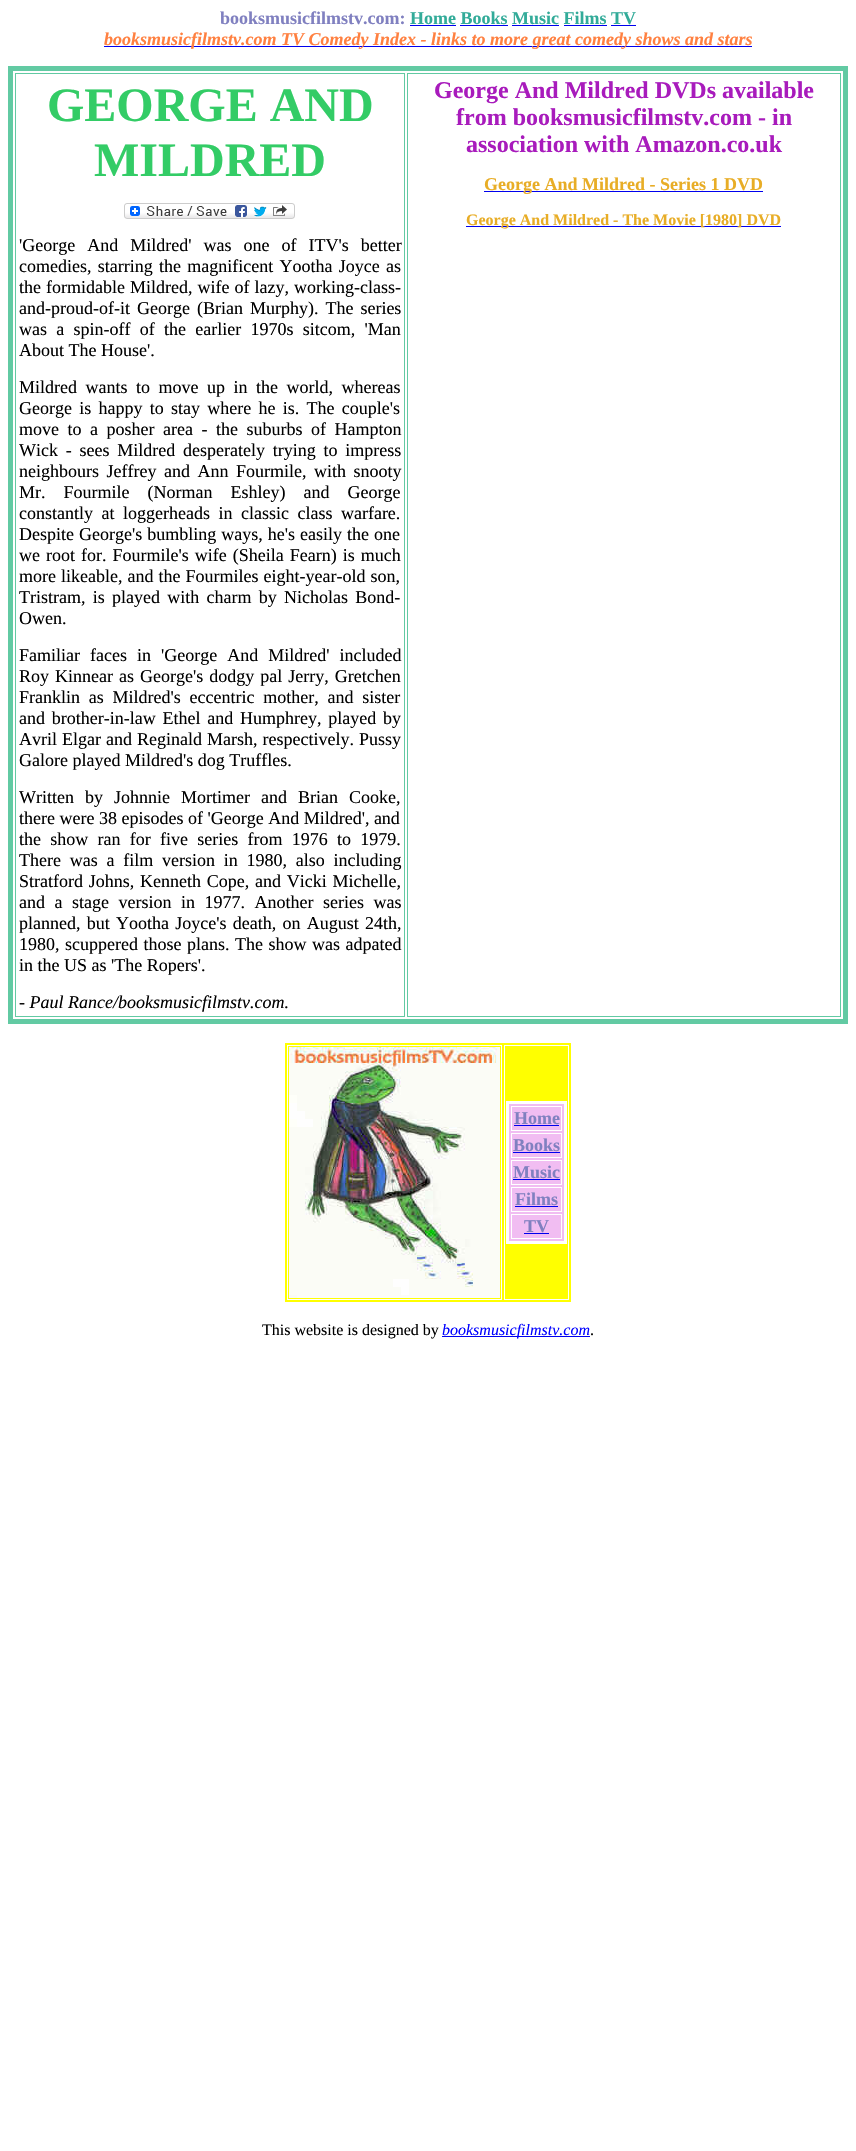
#include "include/core/SkBlurTypes.h"
#include "include/core/SkCanvas.h"
#include "include/core/SkData.h"
#include "include/core/SkFont.h"
#include "include/core/SkFontMgr.h"
#include "include/core/SkImage.h"
#include "include/core/SkMaskFilter.h"
#include "include/core/SkPaint.h"
#include "include/core/SkPathBuilder.h"
#include "include/core/SkTextBlob.h"
#include "include/effects/SkDashPathEffect.h"
#include "include/effects/SkGradientShader.h"
#include "include/utils/SkParsePath.h"

extern sk_sp<SkFontMgr> fontMgr;

void draw(SkCanvas* canvas) {
  SkPaint p;
  p.setAntiAlias(true);
  auto spacedText = [&](const char* s, float x, float y, const SkFont& font, const SkPaint& ink, float letter, float word) {
    std::vector<SkGlyphID> glyphs(font.countText(s, strlen(s), SkTextEncoding::kUTF8));
    std::vector<float> xs(glyphs.size());
    font.textToGlyphs(s, strlen(s), SkTextEncoding::kUTF8, glyphs);
    font.getXPos(glyphs, xs, x);
    float extra = 0;
    for (size_t i = 0; i < glyphs.size(); i++) {
      xs[i] += extra;
      extra += letter + word * (glyphs[i] == font.unicharToGlyph(' '));
    }
    canvas->drawTextBlob(SkTextBlob::MakeFromPosHGlyphs(glyphs, xs, y, font), 0, 0, ink);
  };
  canvas->clear(SK_ColorWHITE);
  p.setColor(SkColorSetRGB(0, 0, 238));
  canvas->drawRect(SkRect::MakeLTRB(410, 25, 456, 26), p);
  canvas->drawRect(SkRect::MakeLTRB(460, 25, 508, 26), p);
  canvas->drawRect(SkRect::MakeLTRB(512, 25, 559, 26), p);
  canvas->drawRect(SkRect::MakeLTRB(564, 25, 607, 26), p);
  canvas->drawRect(SkRect::MakeLTRB(611, 25, 636, 26), p);
  canvas->drawRect(SkRect::MakeLTRB(104, 46, 752, 47), p);
  p.setStyle(SkPaint::kStroke_Style);
  p.setStrokeWidth(5);
  p.setColor(SkColorSetRGB(98, 202, 163));
  canvas->drawRect(SkRect::MakeLTRB(10.5f, 68.5f, 845.5f, 1021.5f), p);
  p.setStrokeWidth(1);
  canvas->drawRect(SkRect::MakeLTRB(15.5f, 73.5f, 404.5f, 1016.5f), p);
  canvas->drawImageRect(SkImages::DeferredFromEncodedData(SkData::MakeFromFileName("images/1.png")), SkRect::MakeLTRB(124, 203, 295, 219), SkSamplingOptions());
  canvas->drawRect(SkRect::MakeLTRB(407.5f, 73.5f, 840.5f, 1016.5f), p);
  p.setStyle(SkPaint::kFill_Style);
  p.setColor(SkColorSetRGB(0, 0, 238));
  canvas->drawRect(SkRect::MakeLTRB(484, 191, 763, 192), p);
  canvas->drawRect(SkRect::MakeLTRB(466, 226, 781, 227), p);
  p.setColor(SkColorSetRGB(255, 255, 0));
  canvas->drawRect(SkRect::MakeLTRB(285, 1043, 571, 1302), p);
  p.setStyle(SkPaint::kStroke_Style);
  p.setColor(SK_ColorWHITE);
  canvas->drawRect(SkRect::MakeLTRB(287.5f, 1045.5f, 501.5f, 1299.5f), p);
  canvas->drawImageRect(SkImages::DeferredFromEncodedData(SkData::MakeFromFileName("images/2.png")), SkRect::MakeLTRB(289, 1047, 500, 1298), SkSamplingOptions());
  canvas->drawRect(SkRect::MakeLTRB(504.5f, 1045.5f, 568.5f, 1299.5f), p);
  p.setStyle(SkPaint::kFill_Style);
  p.setColor(SkColorSetRGB(241, 189, 242));
  canvas->drawRect(SkRect::MakeLTRB(507.5f, 1102.5f, 565.5f, 1242.5f), p);
  p.setStyle(SkPaint::kStroke_Style);
  p.setStrokeWidth(3);
  p.setColor(SK_ColorWHITE);
  canvas->drawRect(SkRect::MakeLTRB(507.5f, 1102.5f, 565.5f, 1242.5f), p);
  p.setStrokeWidth(1);
  canvas->drawRect(SkRect::MakeLTRB(511.5f, 1106.5f, 561.5f, 1130.5f), p);
  p.setStyle(SkPaint::kFill_Style);
  p.setColor(SkColorSetRGB(0, 0, 238));
  canvas->drawRect(SkRect::MakeLTRB(514, 1125, 559, 1126), p);
  p.setStyle(SkPaint::kStroke_Style);
  p.setColor(SK_ColorWHITE);
  canvas->drawRect(SkRect::MakeLTRB(511.5f, 1133.5f, 561.5f, 1157.5f), p);
  p.setStyle(SkPaint::kFill_Style);
  p.setColor(SkColorSetRGB(0, 0, 238));
  canvas->drawRect(SkRect::MakeLTRB(513, 1152, 560, 1153), p);
  p.setStyle(SkPaint::kStroke_Style);
  p.setColor(SK_ColorWHITE);
  canvas->drawRect(SkRect::MakeLTRB(511.5f, 1160.5f, 561.5f, 1184.5f), p);
  p.setStyle(SkPaint::kFill_Style);
  p.setColor(SkColorSetRGB(0, 0, 238));
  canvas->drawRect(SkRect::MakeLTRB(513, 1179, 560, 1180), p);
  p.setStyle(SkPaint::kStroke_Style);
  p.setColor(SK_ColorWHITE);
  canvas->drawRect(SkRect::MakeLTRB(511.5f, 1187.5f, 561.5f, 1211.5f), p);
  p.setStyle(SkPaint::kFill_Style);
  p.setColor(SkColorSetRGB(0, 0, 238));
  canvas->drawRect(SkRect::MakeLTRB(515, 1206, 558, 1207), p);
  p.setStyle(SkPaint::kStroke_Style);
  p.setColor(SK_ColorWHITE);
  canvas->drawRect(SkRect::MakeLTRB(511.5f, 1214.5f, 561.5f, 1238.5f), p);
  p.setStyle(SkPaint::kFill_Style);
  p.setColor(SkColorSetRGB(0, 0, 238));
  canvas->drawRect(SkRect::MakeLTRB(524, 1233, 549, 1234), p);
  canvas->drawRect(SkRect::MakeLTRB(442, 1336, 590, 1337), p);
  SkFont font1(fontMgr->matchFamilyStyle("Liberation Serif", SkFontStyle::Bold()), 18);
  font1.setSubpixel(true);
  p.setColor(SkColorSetRGB(128, 128, 192));
  canvas->drawString("booksmusicfilmstv.com:", 220, 24, font1, p);
  p.setColor(SkColorSetRGB(50, 171, 153));
  canvas->drawString("Home Books Music Films TV", 410, 24, font1, p);
  SkFont font2(fontMgr->matchFamilyStyle("Liberation Serif", SkFontStyle::BoldItalic()), 18);
  font2.setSubpixel(true);
  p.setColor(SkColorSetRGB(255, 128, 64));
  canvas->drawString("booksmusicfilmstv.com TV Comedy Index - links to more great comedy shows and stars", 104, 45, font2, p);
  SkFont font3(fontMgr->matchFamilyStyle("Liberation Serif", SkFontStyle::Bold()), 48);
  font3.setSubpixel(true);
  p.setColor(SkColorSetRGB(51, 204, 102));
  canvas->drawString("GEORGE AND", 47, 121, font3, p);
  canvas->drawString("MILDRED", 94, 176, font3, p);
  SkFont font4(fontMgr->matchFamilyStyle("Liberation Serif", SkFontStyle::Normal()), 18);
  font4.setSubpixel(true);
  p.setColor(SK_ColorBLACK);
  spacedText("'George And Mildred' was one of ITV's better", 19, 251, font4, p, 0, 7.5f);
  spacedText("comedies, starring the magnificent Yootha Joyce as", 19, 272, font4, p, 0, 1.75f);
  spacedText("the formidable Mildred, wife of lazy, working-class-", 19, 293, font4, p, 0, 0.5f);
  spacedText("and-proud-of-it George (Brian Murphy). The series", 19, 314, font4, p, 0, 2.5f);
  spacedText("was a spin-off of the earlier 1970s sitcom, 'Man", 19, 335, font4, p, 0, 4.75f);
  canvas->drawString("About The House'.", 19, 356, font4, p);
  spacedText("Mildred wants to move up in the world, whereas", 19, 393, font4, p, 0, 4);
  spacedText("George is happy to stay where he is. The couple's", 19, 414, font4, p, 0, 2.75f);
  spacedText("move to a posher area - the suburbs of Hampton", 19, 435, font4, p, 0, 4);
  spacedText("Wick - sees Mildred desperately trying to impress", 19, 456, font4, p, 0, 3.25f);
  spacedText("neighbours Jeffrey and Ann Fourmile, with snooty", 19, 477, font4, p, 0, 3);
  spacedText("Mr. Fourmile (Norman Eshley) and George", 19, 498, font4, p, 0, 13.5f);
  spacedText("constantly at loggerheads in classic class warfare.", 19, 519, font4, p, 0, 4);
  spacedText("Despite George's bumbling ways, he's easily the one", 19, 540, font4, p, 0, 0.5f);
  spacedText("we root for. Fourmile's wife (Sheila Fearn) is much", 19, 561, font4, p, 0, 1.5f);
  spacedText("more likeable, and the Fourmiles eight-year-old son,", 19, 582, font4, p, 0, 0.5f);
  spacedText("Tristram, is played with charm by Nicholas Bond-", 19, 603, font4, p, 0, 2.75f);
  canvas->drawString("Owen.", 19, 624, font4, p);
  spacedText("Familiar faces in 'George And Mildred' included", 19, 661, font4, p, 0, 5.5f);
  spacedText("Roy Kinnear as George's dodgy pal Jerry, Gretchen", 19, 682, font4, p, 0, 1.5f);
  spacedText("Franklin as Mildred's eccentric mother, and sister", 19, 703, font4, p, 0, 4.25f);
  spacedText("and brother-in-law Ethel and Humphrey, played by", 19, 724, font4, p, 0, 2.25f);
  spacedText("Avril Elgar and Reginald Marsh, respectively. Pussy", 19, 745, font4, p, 0, 0.5f);
  canvas->drawString("Galore played Mildred's dog Truffles.", 19, 766, font4, p);
  spacedText("Written by Johnnie Mortimer and Brian Cooke,", 19, 803, font4, p, 0, 6.5f);
  canvas->drawString("there were 38 episodes of 'George And Mildred', and", 19, 824, font4, p);
  spacedText("the show ran for five series from 1976 to 1979.", 19, 845, font4, p, 0, 4.75f);
  spacedText("There was a film version in 1980, also including", 19, 866, font4, p, 0, 4.25f);
  spacedText("Stratford Johns, Kenneth Cope, and Vicki Michelle,", 19, 887, font4, p, 0, 1.25f);
  spacedText("and a stage version in 1977. Another series was", 19, 908, font4, p, 0, 5);
  spacedText("planned, but Yootha Joyce's death, on August 24th,", 19, 929, font4, p, 0, 1.75f);
  spacedText("1980, scuppered those plans. The show was adpated", 19, 950, font4, p, 0, 1);
  canvas->drawString("in the US as 'The Ropers'.", 19, 971, font4, p);
  SkFont font5(fontMgr->matchFamilyStyle("Liberation Serif", SkFontStyle::Italic()), 18);
  font5.setSubpixel(true);
  canvas->drawString("- Paul Rance/booksmusicfilmstv.com.", 19, 1008, font5, p);
  SkFont font6(fontMgr->matchFamilyStyle("Liberation Serif", SkFontStyle::Bold()), 24);
  font6.setSubpixel(true);
  p.setColor(SkColorSetRGB(168, 27, 188));
  canvas->drawString("George And Mildred DVDs available", 434, 98, font6, p);
  canvas->drawString("from booksmusicfilmstv.com - in", 456, 125, font6, p);
  canvas->drawString("association with Amazon.co.uk", 466, 152, font6, p);
  p.setColor(SkColorSetRGB(232, 173, 38));
  canvas->drawString("George And Mildred - Series 1 DVD", 484, 190, font1, p);
  SkFont font7(fontMgr->matchFamilyStyle("Liberation Serif", SkFontStyle::Bold()), 16);
  font7.setSubpixel(true);
  canvas->drawString("George And Mildred - The Movie [1980] DVD", 466, 225, font7, p);
  p.setColor(SkColorSetRGB(128, 128, 192));
  canvas->drawString("Home", 514, 1124, font1, p);
  canvas->drawString("Books", 513, 1151, font1, p);
  canvas->drawString("Music", 513, 1178, font1, p);
  canvas->drawString("Films", 515, 1205, font1, p);
  canvas->drawString("TV", 524, 1232, font1, p);
  SkFont font8(fontMgr->matchFamilyStyle("Liberation Serif", SkFontStyle::Normal()), 16);
  font8.setSubpixel(true);
  p.setColor(SK_ColorBLACK);
  canvas->drawString("This website is designed by", 262, 1335, font8, p);
  SkFont font9(fontMgr->matchFamilyStyle("Liberation Serif", SkFontStyle::Italic()), 16);
  font9.setSubpixel(true);
  p.setColor(SkColorSetRGB(0, 0, 255));
  canvas->drawString("booksmusicfilmstv.com", 442, 1335, font9, p);
  p.setColor(SK_ColorBLACK);
  canvas->drawString(".", 590, 1335, font8, p);
}
